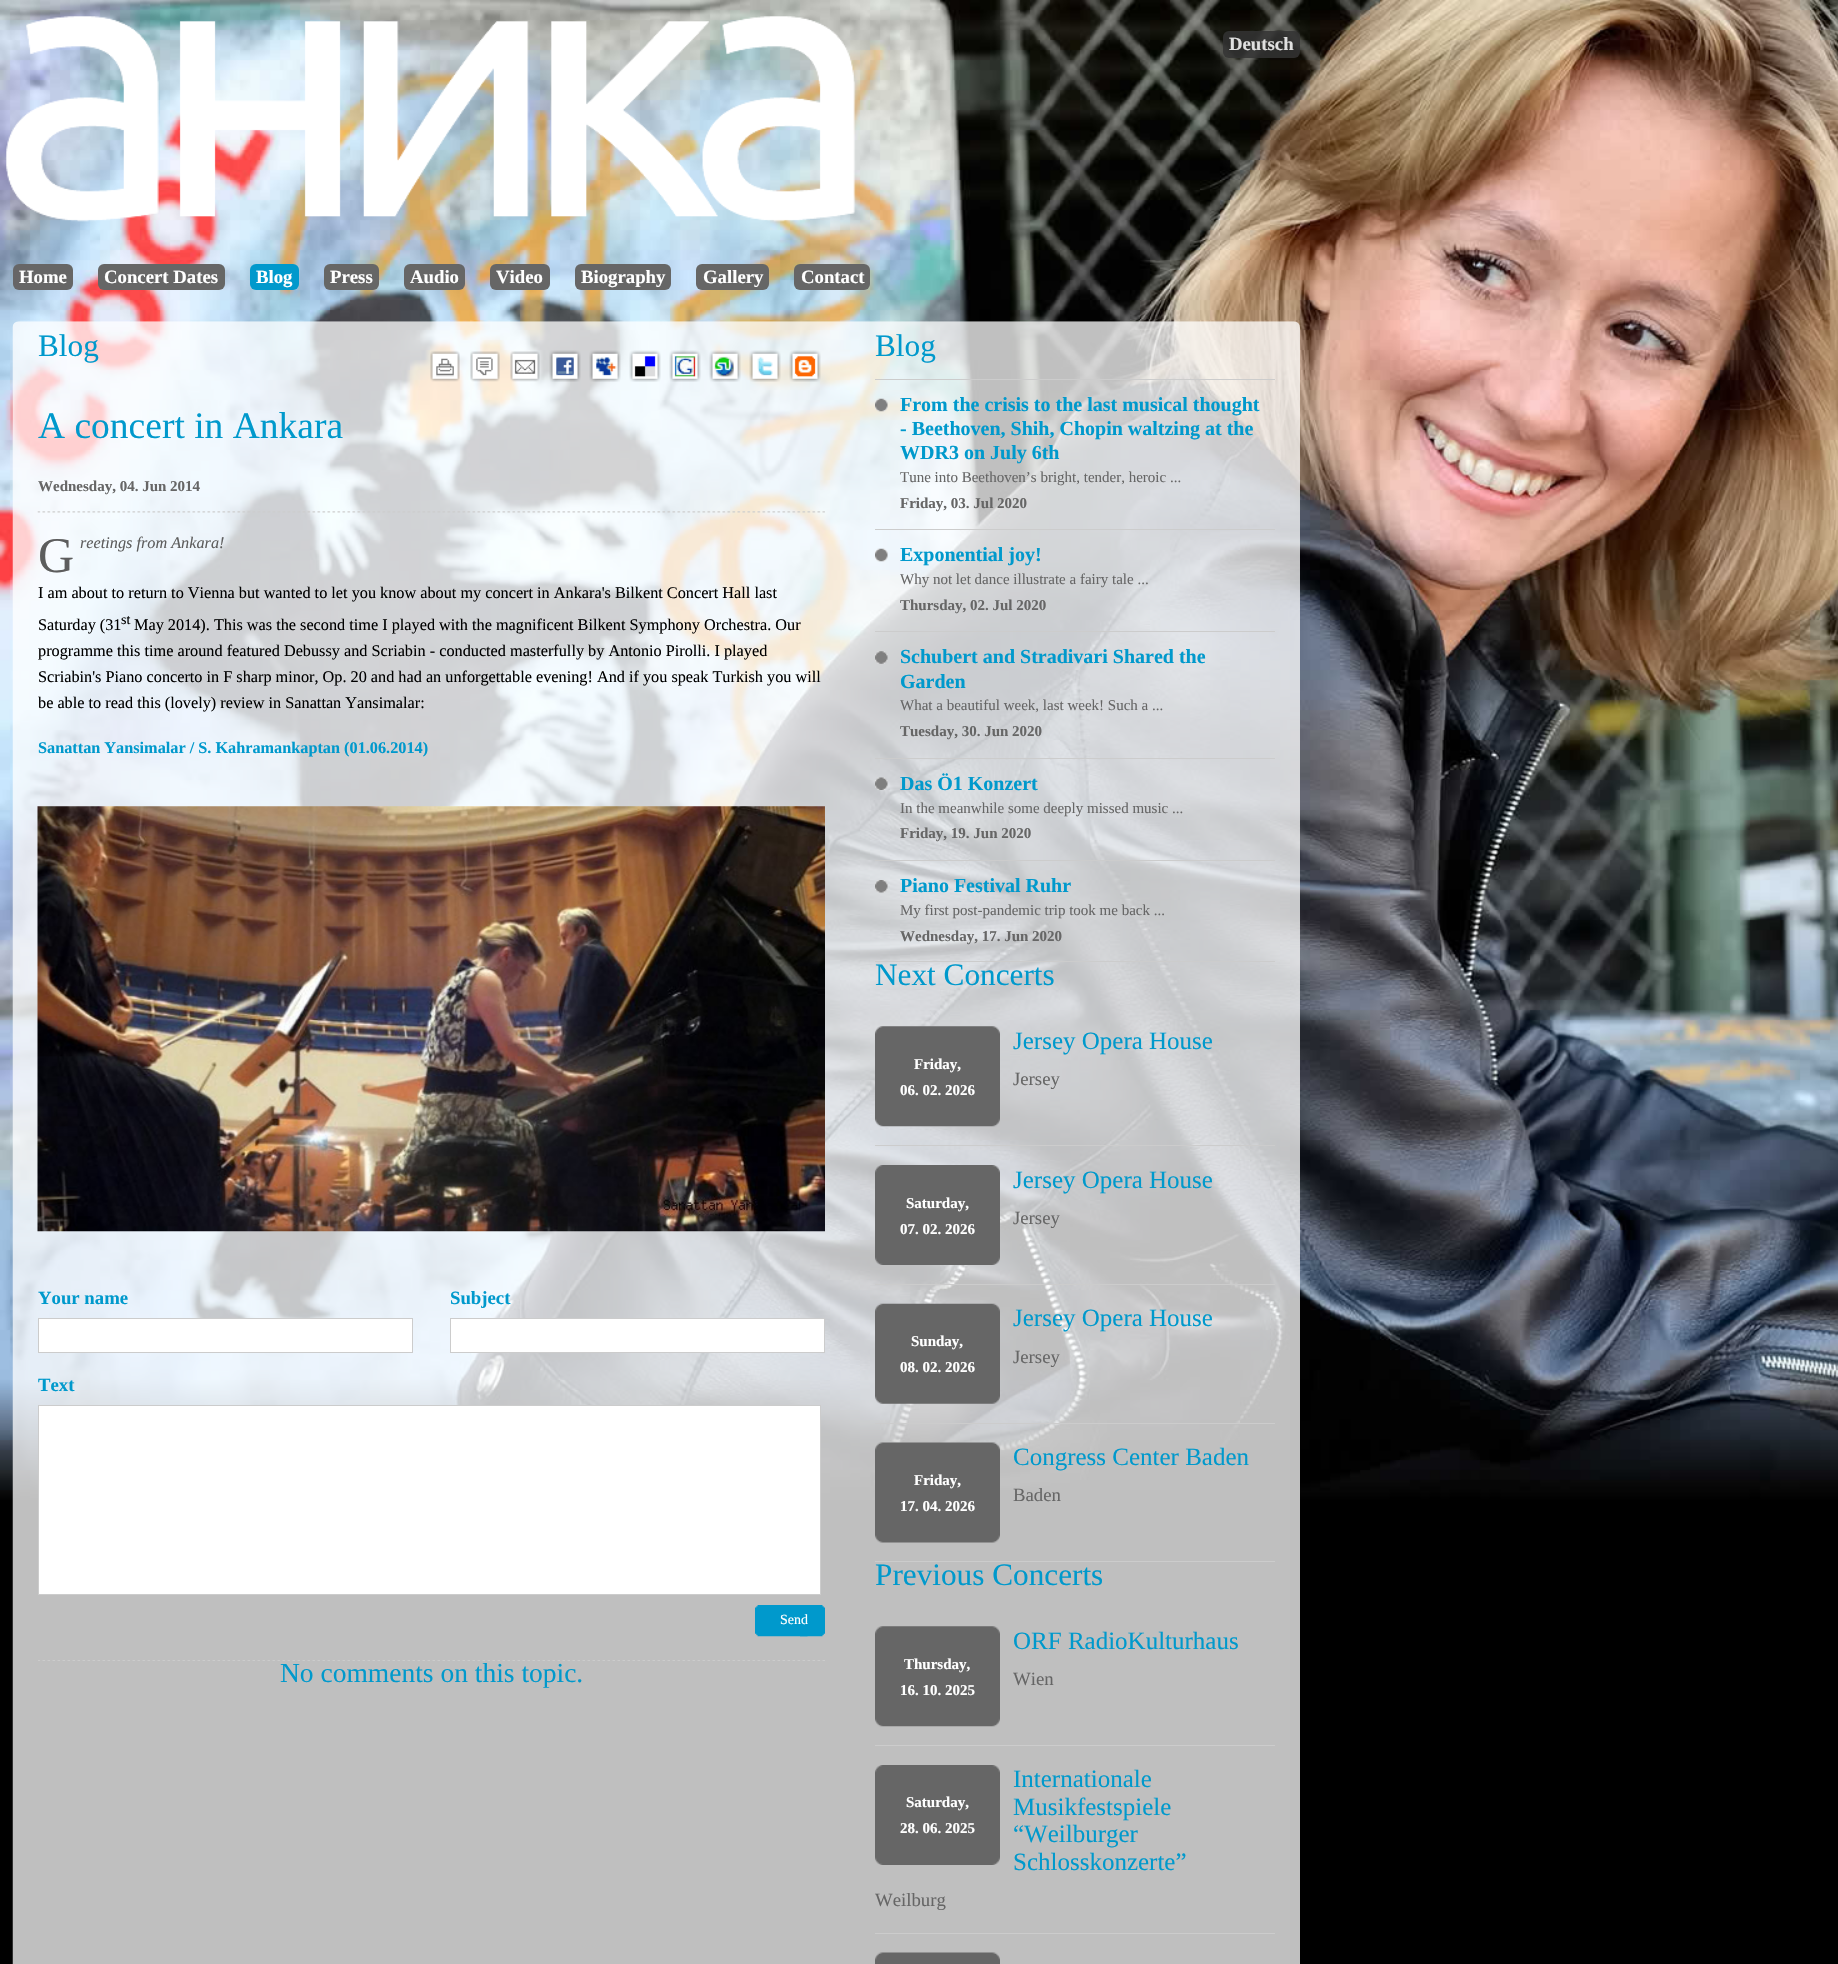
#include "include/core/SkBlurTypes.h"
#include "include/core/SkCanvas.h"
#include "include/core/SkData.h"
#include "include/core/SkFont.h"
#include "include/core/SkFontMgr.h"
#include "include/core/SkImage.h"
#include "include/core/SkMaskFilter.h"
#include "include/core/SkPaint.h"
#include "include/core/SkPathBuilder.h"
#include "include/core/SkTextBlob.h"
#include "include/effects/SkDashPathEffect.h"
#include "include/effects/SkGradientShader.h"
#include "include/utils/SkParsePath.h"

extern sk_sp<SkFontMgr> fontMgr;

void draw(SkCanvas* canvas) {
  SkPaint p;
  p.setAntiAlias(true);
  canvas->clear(SK_ColorBLACK);
  canvas->drawImageRect(SkImages::DeferredFromEncodedData(SkData::MakeFromFileName("images/1.png")), SkRect::MakeLTRB(0, 0, 1838, 1500), SkSamplingOptions());
  canvas->drawImageRect(SkImages::DeferredFromEncodedData(SkData::MakeFromFileName("images/2.png")), SkRect::MakeLTRB(5, 16, 856, 222), SkSamplingOptions());
  p.setColor(SkColorSetARGB(217, 51, 51, 51));
  canvas->drawRoundRect(SkRect::MakeLTRB(1223, 31, 1300, 58), 6, 6, p);
  p.setColor(SkColorSetRGB(102, 102, 102));
  canvas->drawRoundRect(SkRect::MakeLTRB(13, 264, 73, 290), 6, 6, p);
  canvas->drawRoundRect(SkRect::MakeLTRB(98, 264, 225, 290), 6, 6, p);
  p.setColor(SkColorSetRGB(0, 153, 204));
  canvas->drawRoundRect(SkRect::MakeLTRB(250, 264, 299, 290), 6, 6, p);
  p.setColor(SkColorSetRGB(102, 102, 102));
  canvas->drawRoundRect(SkRect::MakeLTRB(324, 264, 379, 290), 6, 6, p);
  canvas->drawRoundRect(SkRect::MakeLTRB(404, 264, 465, 290), 6, 6, p);
  canvas->drawRoundRect(SkRect::MakeLTRB(490, 264, 550, 290), 6, 6, p);
  canvas->drawRoundRect(SkRect::MakeLTRB(575, 264, 671, 290), 6, 6, p);
  canvas->drawRoundRect(SkRect::MakeLTRB(696, 264, 769, 290), 6, 6, p);
  canvas->drawRoundRect(SkRect::MakeLTRB(794, 264, 870, 290), 6, 6, p);
  canvas->drawImageRect(SkImages::DeferredFromEncodedData(SkData::MakeFromFileName("images/3.png")), SkRect::MakeLTRB(12, 321, 1300, 1964), SkSamplingOptions());
  canvas->drawImageRect(SkImages::DeferredFromEncodedData(SkData::MakeFromFileName("images/4.png")), SkRect::MakeLTRB(430, 351, 460, 382), SkSamplingOptions());
  canvas->drawImageRect(SkImages::DeferredFromEncodedData(SkData::MakeFromFileName("images/5.png")), SkRect::MakeLTRB(470, 351, 500, 382), SkSamplingOptions());
  canvas->drawImageRect(SkImages::DeferredFromEncodedData(SkData::MakeFromFileName("images/6.png")), SkRect::MakeLTRB(510, 351, 540, 382), SkSamplingOptions());
  canvas->drawImageRect(SkImages::DeferredFromEncodedData(SkData::MakeFromFileName("images/7.png")), SkRect::MakeLTRB(549, 350, 581, 382), SkSamplingOptions());
  canvas->drawImageRect(SkImages::DeferredFromEncodedData(SkData::MakeFromFileName("images/8.png")), SkRect::MakeLTRB(589, 350, 621, 382), SkSamplingOptions());
  canvas->drawImageRect(SkImages::DeferredFromEncodedData(SkData::MakeFromFileName("images/9.png")), SkRect::MakeLTRB(629, 350, 661, 382), SkSamplingOptions());
  canvas->drawImageRect(SkImages::DeferredFromEncodedData(SkData::MakeFromFileName("images/10.png")), SkRect::MakeLTRB(669, 350, 701, 382), SkSamplingOptions());
  canvas->drawImageRect(SkImages::DeferredFromEncodedData(SkData::MakeFromFileName("images/11.png")), SkRect::MakeLTRB(709, 350, 741, 382), SkSamplingOptions());
  canvas->drawImageRect(SkImages::DeferredFromEncodedData(SkData::MakeFromFileName("images/12.png")), SkRect::MakeLTRB(749, 350, 781, 382), SkSamplingOptions());
  canvas->drawImageRect(SkImages::DeferredFromEncodedData(SkData::MakeFromFileName("images/13.png")), SkRect::MakeLTRB(789, 350, 821, 382), SkSamplingOptions());
  canvas->drawImageRect(SkImages::DeferredFromEncodedData(SkData::MakeFromFileName("images/14.png")), SkRect::MakeLTRB(37, 511, 825, 513), SkSamplingOptions());
  canvas->drawImageRect(SkImages::DeferredFromEncodedData(SkData::MakeFromFileName("images/15.png")), SkRect::MakeLTRB(37, 806, 825, 1232), SkSamplingOptions());
  canvas->drawImageRect(SkImages::DeferredFromEncodedData(SkData::MakeFromFileName("images/16.png")), SkRect::MakeLTRB(38, 1660, 825, 1661), SkSamplingOptions());
  p.setColor(SK_ColorWHITE);
  canvas->drawRect(SkRect::MakeLTRB(38.5f, 1318.5f, 412.5f, 1352.5f), p);
  p.setStyle(SkPaint::kStroke_Style);
  p.setStrokeWidth(1);
  p.setColor(SkColorSetRGB(204, 204, 204));
  canvas->drawRect(SkRect::MakeLTRB(38.5f, 1318.5f, 412.5f, 1352.5f), p);
  p.setStyle(SkPaint::kFill_Style);
  p.setColor(SK_ColorWHITE);
  canvas->drawRect(SkRect::MakeLTRB(450.5f, 1318.5f, 824.5f, 1352.5f), p);
  p.setStyle(SkPaint::kStroke_Style);
  p.setColor(SkColorSetRGB(204, 204, 204));
  canvas->drawRect(SkRect::MakeLTRB(450.5f, 1318.5f, 824.5f, 1352.5f), p);
  p.setStyle(SkPaint::kFill_Style);
  p.setColor(SK_ColorWHITE);
  canvas->drawRect(SkRect::MakeLTRB(38.5f, 1405.5f, 820.5f, 1594.5f), p);
  p.setStyle(SkPaint::kStroke_Style);
  p.setColor(SkColorSetRGB(204, 204, 204));
  canvas->drawRect(SkRect::MakeLTRB(38.5f, 1405.5f, 820.5f, 1594.5f), p);
  canvas->drawImageRect(SkImages::DeferredFromEncodedData(SkData::MakeFromFileName("images/17.png")), SkRect::MakeLTRB(800, 1605, 825, 1637), SkSamplingOptions());
  canvas->drawImageRect(SkImages::DeferredFromEncodedData(SkData::MakeFromFileName("images/18.png")), SkRect::MakeLTRB(755, 1605, 808, 1637), SkSamplingOptions());
  p.setStyle(SkPaint::kFill_Style);
  canvas->drawRect(SkRect::MakeLTRB(875, 379, 1275, 380), p);
  canvas->drawImageRect(SkImages::DeferredFromEncodedData(SkData::MakeFromFileName("images/19.png")), SkRect::MakeLTRB(875, 398, 888, 412), SkSamplingOptions());
  canvas->drawRect(SkRect::MakeLTRB(875, 529, 1275, 530), p);
  canvas->drawImageRect(SkImages::DeferredFromEncodedData(SkData::MakeFromFileName("images/20.png")), SkRect::MakeLTRB(875, 548, 888, 562), SkSamplingOptions());
  canvas->drawRect(SkRect::MakeLTRB(875, 631, 1275, 632), p);
  canvas->drawImageRect(SkImages::DeferredFromEncodedData(SkData::MakeFromFileName("images/21.png")), SkRect::MakeLTRB(875, 651, 888, 664), SkSamplingOptions());
  canvas->drawRect(SkRect::MakeLTRB(875, 758, 1275, 759), p);
  canvas->drawImageRect(SkImages::DeferredFromEncodedData(SkData::MakeFromFileName("images/22.png")), SkRect::MakeLTRB(875, 777, 888, 790), SkSamplingOptions());
  canvas->drawRect(SkRect::MakeLTRB(875, 860, 1275, 861), p);
  canvas->drawImageRect(SkImages::DeferredFromEncodedData(SkData::MakeFromFileName("images/23.png")), SkRect::MakeLTRB(875, 880, 888, 893), SkSamplingOptions());
  canvas->drawRect(SkRect::MakeLTRB(875, 961, 1275, 962), p);
  canvas->drawRect(SkRect::MakeLTRB(875, 1145, 1275, 1146), p);
  canvas->drawImageRect(SkImages::DeferredFromEncodedData(SkData::MakeFromFileName("images/24.png")), SkRect::MakeLTRB(875, 1026, 1000, 1127), SkSamplingOptions());
  canvas->drawRect(SkRect::MakeLTRB(875, 1284, 1275, 1285), p);
  canvas->drawImageRect(SkImages::DeferredFromEncodedData(SkData::MakeFromFileName("images/25.png")), SkRect::MakeLTRB(875, 1165, 1000, 1265), SkSamplingOptions());
  canvas->drawRect(SkRect::MakeLTRB(875, 1423, 1275, 1424), p);
  canvas->drawImageRect(SkImages::DeferredFromEncodedData(SkData::MakeFromFileName("images/26.png")), SkRect::MakeLTRB(875, 1303, 1000, 1404), SkSamplingOptions());
  canvas->drawRect(SkRect::MakeLTRB(875, 1561, 1275, 1562), p);
  canvas->drawImageRect(SkImages::DeferredFromEncodedData(SkData::MakeFromFileName("images/27.png")), SkRect::MakeLTRB(875, 1442, 1000, 1543), SkSamplingOptions());
  canvas->drawRect(SkRect::MakeLTRB(875, 1745, 1275, 1746), p);
  canvas->drawImageRect(SkImages::DeferredFromEncodedData(SkData::MakeFromFileName("images/28.png")), SkRect::MakeLTRB(875, 1626, 1000, 1727), SkSamplingOptions());
  canvas->drawRect(SkRect::MakeLTRB(875, 1933, 1275, 1934), p);
  canvas->drawImageRect(SkImages::DeferredFromEncodedData(SkData::MakeFromFileName("images/29.png")), SkRect::MakeLTRB(875, 1765, 1000, 1865), SkSamplingOptions());
  canvas->drawImageRect(SkImages::DeferredFromEncodedData(SkData::MakeFromFileName("images/30.png")), SkRect::MakeLTRB(875, 1952, 1000, 1964), SkSamplingOptions());
  SkFont font1(fontMgr->matchFamilyStyle("Liberation Serif", SkFontStyle::Bold()), 18.75f);
  font1.setSubpixel(true);
  p.setColor(SkColorSetRGB(224, 224, 224));
  canvas->drawString("Deutsch", 1229, 50, font1, p);
  p.setColor(SK_ColorWHITE);
  canvas->drawString("Home", 19, 283, font1, p);
  canvas->drawString("Concert Dates", 104, 283, font1, p);
  canvas->drawString("Blog", 256, 283, font1, p);
  canvas->drawString("Press", 330, 283, font1, p);
  canvas->drawString("Audio", 410, 283, font1, p);
  canvas->drawString("Video", 496, 283, font1, p);
  canvas->drawString("Biography", 581, 283, font1, p);
  canvas->drawString("Gallery", 703, 283, font1, p);
  canvas->drawString("Contact", 801, 283, font1, p);
  SkFont font2(fontMgr->matchFamilyStyle("Liberation Serif", SkFontStyle::Normal()), 31.25f);
  font2.setSubpixel(true);
  p.setColor(SkColorSetRGB(0, 153, 204));
  canvas->drawString("Blog", 38, 356, font2, p);
  SkFont font3(fontMgr->matchFamilyStyle("Liberation Serif", SkFontStyle::Normal()), 37.5f);
  font3.setSubpixel(true);
  canvas->drawString("A concert in Ankara", 38, 438, font3, p);
  SkFont font4(fontMgr->matchFamilyStyle("Liberation Serif", SkFontStyle::Bold()), 15);
  font4.setSubpixel(true);
  p.setColor(SkColorSetRGB(102, 102, 102));
  canvas->drawString("Wednesday, 04. Jun 2014", 38, 491, font4, p);
  SkFont font5(fontMgr->matchFamilyStyle("Liberation Serif", SkFontStyle::Normal()), 50);
  font5.setSubpixel(true);
  p.setColor(SkColorSetRGB(93, 93, 93));
  canvas->drawString("G", 38, 572, font5, p);
  SkFont font6(fontMgr->matchFamilyStyle("Liberation Serif", SkFontStyle::Italic()), 16.25f);
  font6.setSubpixel(true);
  canvas->drawString("reetings from Ankara!", 80, 548, font6, p);
  SkFont font7(fontMgr->matchFamilyStyle("Liberation Serif", SkFontStyle::Normal()), 16.25f);
  font7.setSubpixel(true);
  p.setColor(SK_ColorBLACK);
  canvas->drawString("I am about to return to Vienna but wanted to let you know about my concert in Ankara's Bilkent Concert Hall last", 38, 598, font7, p);
  canvas->drawString("Saturday (31", 38, 630, font7, p);
  SkFont font8(fontMgr->matchFamilyStyle("Liberation Serif", SkFontStyle::Normal()), 14);
  font8.setSubpixel(true);
  canvas->drawString("st", 121, 624, font8, p);
  canvas->drawString("May 2014). This was the second time I played with the magnificent Bilkent Symphony Orchestra. Our", 134, 630, font7, p);
  canvas->drawString("programme this time around featured Debussy and Scriabin - conducted masterfully by Antonio Pirolli. I played", 38, 656, font7, p);
  canvas->drawString("Scriabin's Piano concerto in F sharp minor, Op. 20 and had an unforgettable evening! And if you speak Turkish you will", 38, 682, font7, p);
  canvas->drawString("be able to read this (lovely) review in Sanattan Yansimalar:", 38, 708, font7, p);
  SkFont font9(fontMgr->matchFamilyStyle("Liberation Serif", SkFontStyle::Bold()), 16.25f);
  font9.setSubpixel(true);
  p.setColor(SkColorSetRGB(0, 153, 204));
  canvas->drawString("Sanattan Yansimalar / S. Kahramankaptan (01.06.2014)", 38, 753, font9, p);
  canvas->drawString("Your name", 38, 1304, font1, p);
  canvas->drawString("Subject", 450, 1304, font1, p);
  canvas->drawString("Text", 38, 1391, font1, p);
  p.setColor(SK_ColorWHITE);
  canvas->drawString("Send", 780, 1624, font8, p);
  SkFont font10(fontMgr->matchFamilyStyle("Liberation Serif", SkFontStyle::Normal()), 27.5f);
  font10.setSubpixel(true);
  p.setColor(SkColorSetRGB(0, 153, 204));
  canvas->drawString("No comments on this topic.", 280, 1682, font10, p);
  canvas->drawString("Blog", 875, 356, font2, p);
  SkFont font11(fontMgr->matchFamilyStyle("Liberation Serif", SkFontStyle::Bold()), 20);
  font11.setSubpixel(true);
  canvas->drawString("From the crisis to the last musical thought", 900, 411, font11, p);
  canvas->drawString("- Beethoven, Shih, Chopin waltzing at the", 900, 435, font11, p);
  canvas->drawString("WDR3 on July 6th", 900, 459, font11, p);
  SkFont font12(fontMgr->matchFamilyStyle("Liberation Serif", SkFontStyle::Normal()), 15);
  font12.setSubpixel(true);
  p.setColor(SkColorSetRGB(102, 102, 102));
  canvas->drawString("Tune into Beethoven’s bright, tender, heroic ...", 900, 482, font12, p);
  canvas->drawString("Friday, 03. Jul 2020", 900, 508, font4, p);
  p.setColor(SkColorSetRGB(0, 153, 204));
  canvas->drawString("Exponential joy!", 900, 561, font11, p);
  p.setColor(SkColorSetRGB(102, 102, 102));
  canvas->drawString("Why not let dance illustrate a fairy tale ...", 900, 584, font12, p);
  canvas->drawString("Thursday, 02. Jul 2020", 900, 610, font4, p);
  p.setColor(SkColorSetRGB(0, 153, 204));
  canvas->drawString("Schubert and Stradivari Shared the", 900, 663, font11, p);
  canvas->drawString("Garden", 900, 688, font11, p);
  p.setColor(SkColorSetRGB(102, 102, 102));
  canvas->drawString("What a beautiful week, last week! Such a ...", 900, 710, font12, p);
  canvas->drawString("Tuesday, 30. Jun 2020", 900, 736, font4, p);
  p.setColor(SkColorSetRGB(0, 153, 204));
  canvas->drawString("Das Ö1 Konzert", 900, 790, font11, p);
  p.setColor(SkColorSetRGB(102, 102, 102));
  canvas->drawString("In the meanwhile some deeply missed music ...", 900, 813, font12, p);
  canvas->drawString("Friday, 19. Jun 2020", 900, 838, font4, p);
  p.setColor(SkColorSetRGB(0, 153, 204));
  canvas->drawString("Piano Festival Ruhr", 900, 892, font11, p);
  p.setColor(SkColorSetRGB(102, 102, 102));
  canvas->drawString("My first post-pandemic trip took me back ...", 900, 915, font12, p);
  canvas->drawString("Wednesday, 17. Jun 2020", 900, 941, font4, p);
  p.setColor(SkColorSetRGB(0, 153, 204));
  canvas->drawString("Next Concerts", 875, 985, font2, p);
  SkFont font13(fontMgr->matchFamilyStyle("Liberation Serif", SkFontStyle::Normal()), 25);
  font13.setSubpixel(true);
  canvas->drawString("Jersey Opera House", 1013, 1049, font13, p);
  p.setColor(SK_ColorWHITE);
  canvas->drawString("Friday,", 914, 1069, font4, p);
  canvas->drawString("06. 02. 2026", 900, 1095, font4, p);
  SkFont font14(fontMgr->matchFamilyStyle("Liberation Serif", SkFontStyle::Normal()), 18.75f);
  font14.setSubpixel(true);
  p.setColor(SkColorSetRGB(102, 102, 102));
  canvas->drawString("Jersey", 1013, 1085, font14, p);
  p.setColor(SkColorSetRGB(0, 153, 204));
  canvas->drawString("Jersey Opera House", 1013, 1188, font13, p);
  p.setColor(SK_ColorWHITE);
  canvas->drawString("Saturday,", 906, 1208, font4, p);
  canvas->drawString("07. 02. 2026", 900, 1234, font4, p);
  p.setColor(SkColorSetRGB(102, 102, 102));
  canvas->drawString("Jersey", 1013, 1224, font14, p);
  p.setColor(SkColorSetRGB(0, 153, 204));
  canvas->drawString("Jersey Opera House", 1013, 1326, font13, p);
  p.setColor(SK_ColorWHITE);
  canvas->drawString("Sunday,", 911, 1346, font4, p);
  canvas->drawString("08. 02. 2026", 900, 1372, font4, p);
  p.setColor(SkColorSetRGB(102, 102, 102));
  canvas->drawString("Jersey", 1013, 1363, font14, p);
  p.setColor(SkColorSetRGB(0, 153, 204));
  canvas->drawString("Congress Center Baden", 1013, 1465, font13, p);
  p.setColor(SK_ColorWHITE);
  canvas->drawString("Friday,", 914, 1485, font4, p);
  canvas->drawString("17. 04. 2026", 900, 1511, font4, p);
  p.setColor(SkColorSetRGB(102, 102, 102));
  canvas->drawString("Baden", 1013, 1501, font14, p);
  p.setColor(SkColorSetRGB(0, 153, 204));
  canvas->drawString("Previous Concerts", 875, 1585, font2, p);
  canvas->drawString("ORF RadioKulturhaus", 1013, 1649, font13, p);
  p.setColor(SK_ColorWHITE);
  canvas->drawString("Thursday,", 904, 1669, font4, p);
  canvas->drawString("16. 10. 2025", 900, 1695, font4, p);
  p.setColor(SkColorSetRGB(102, 102, 102));
  canvas->drawString("Wien", 1013, 1685, font14, p);
  p.setColor(SK_ColorWHITE);
  canvas->drawString("Saturday,", 906, 1807, font4, p);
  canvas->drawString("28. 06. 2025", 900, 1833, font4, p);
  p.setColor(SkColorSetRGB(0, 153, 204));
  canvas->drawString("Internationale", 1013, 1787, font13, p);
  canvas->drawString("Musikfestspiele", 1013, 1815, font13, p);
  canvas->drawString("“Weilburger", 1013, 1842, font13, p);
  canvas->drawString("Schlosskonzerte”", 1013, 1870, font13, p);
  p.setColor(SkColorSetRGB(102, 102, 102));
  canvas->drawString("Weilburg", 875, 1906, font14, p);
}
